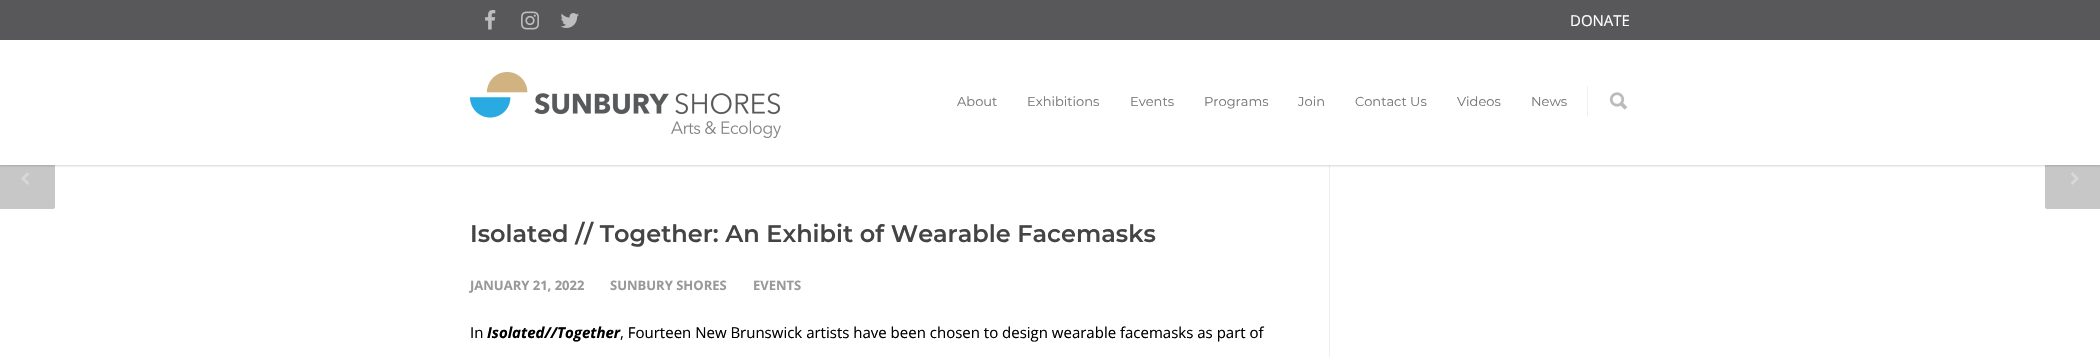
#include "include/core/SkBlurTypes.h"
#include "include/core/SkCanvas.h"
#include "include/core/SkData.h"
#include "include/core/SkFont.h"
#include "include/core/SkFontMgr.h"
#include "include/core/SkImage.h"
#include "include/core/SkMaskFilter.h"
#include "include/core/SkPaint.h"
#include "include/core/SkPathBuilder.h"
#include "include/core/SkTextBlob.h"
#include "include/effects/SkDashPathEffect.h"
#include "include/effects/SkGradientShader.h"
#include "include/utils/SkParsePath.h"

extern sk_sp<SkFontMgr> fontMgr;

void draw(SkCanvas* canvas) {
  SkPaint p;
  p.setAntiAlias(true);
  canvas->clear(SK_ColorWHITE);
  p.setColor(SkColorSetRGB(239, 239, 239));
  canvas->drawRect(SkRect::MakeLTRB(1329, 165, 1330, 357), p);
  p.setColor(SkColorSetRGB(199, 199, 199));
  canvas->drawPath(SkPathBuilder().moveTo(-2, 149).lineTo(53, 149).cubicTo(54, 149, 55, 150, 55, 151).lineTo(55, 207).cubicTo(55, 208, 54, 209, 53, 209).lineTo(-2, 209).close().detach(), p);
  canvas->drawPath(SkPathBuilder().moveTo(2047, 149).lineTo(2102, 149).lineTo(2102, 209).lineTo(2047, 209).cubicTo(2046, 209, 2045, 208, 2045, 207).lineTo(2045, 151).cubicTo(2045, 150, 2046, 149, 2047, 149).close().detach(), p);
  p.setColor(SkColorSetARGB(41, 0, 0, 0));
  p.setMaskFilter(SkMaskFilter::MakeBlur(kNormal_SkBlurStyle, 1));
  canvas->drawRect(SkRect::MakeLTRB(-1, 39, 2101, 166), p);
  p.setMaskFilter(nullptr);
  p.setColor(SkColorSetRGB(88, 88, 91));
  canvas->drawRect(SkRect::MakeLTRB(0, 0, 2100, 40), p);
  canvas->drawImageRect(SkImages::DeferredFromEncodedData(SkData::MakeFromFileName("images/1.png")), SkRect::MakeLTRB(485, 10, 496, 30), SkSamplingOptions());
  canvas->drawImageRect(SkImages::DeferredFromEncodedData(SkData::MakeFromFileName("images/2.png")), SkRect::MakeLTRB(521, 11, 539, 30), SkSamplingOptions());
  canvas->drawImageRect(SkImages::DeferredFromEncodedData(SkData::MakeFromFileName("images/3.png")), SkRect::MakeLTRB(560, 13, 579, 28), SkSamplingOptions());
  p.setColor(SK_ColorWHITE);
  canvas->drawRect(SkRect::MakeLTRB(0, 40, 2100, 165), p);
  canvas->drawImageRect(SkImages::DeferredFromEncodedData(SkData::MakeFromFileName("images/4.png")), SkRect::MakeLTRB(470, 72, 781, 138), SkSamplingOptions());
  p.setColor(SkColorSetRGB(239, 239, 239));
  canvas->drawRect(SkRect::MakeLTRB(1587, 86, 1588, 116), p);
  canvas->drawImageRect(SkImages::DeferredFromEncodedData(SkData::MakeFromFileName("images/5.png")), SkRect::MakeLTRB(1609, 92, 1627, 110), SkSamplingOptions());
  canvas->drawImageRect(SkImages::DeferredFromEncodedData(SkData::MakeFromFileName("images/6.png")), SkRect::MakeLTRB(21, 172, 29, 185), SkSamplingOptions());
  canvas->drawImageRect(SkImages::DeferredFromEncodedData(SkData::MakeFromFileName("images/7.png")), SkRect::MakeLTRB(2071, 172, 2079, 185), SkSamplingOptions());
  SkFont font1(fontMgr->matchFamilyStyle("Open Sans", SkFontStyle::Normal()), 15);
  font1.setSubpixel(true);
  p.setColor(SK_ColorWHITE);
  canvas->drawString("DONATE", 1570, 26, font1, p);
  SkFont font2(fontMgr->matchFamilyStyle("Montserrat", SkFontStyle::Normal()), 13);
  font2.setSubpixel(true);
  p.setColor(SkColorSetRGB(119, 119, 119));
  canvas->drawString("About", 957, 106, font2, p);
  canvas->drawString("Exhibitions", 1027, 106, font2, p);
  canvas->drawString("Events", 1130, 106, font2, p);
  canvas->drawString("Programs", 1204, 106, font2, p);
  canvas->drawString("Join", 1298, 106, font2, p);
  canvas->drawString("Contact Us", 1355, 106, font2, p);
  canvas->drawString("Videos", 1457, 106, font2, p);
  canvas->drawString("News", 1531, 106, font2, p);
  SkFont font3(fontMgr->matchFamilyStyle("Montserrat", SkFontStyle(600, SkFontStyle::kNormal_Width, SkFontStyle::kUpright_Slant)), 24);
  font3.setSubpixel(true);
  p.setColor(SkColorSetRGB(68, 68, 68));
  canvas->drawString("Isolated // Together: An Exhibit of Wearable Facemasks", 470, 242, font3, p);
  SkFont font4(fontMgr->matchFamilyStyle("Open Sans", SkFontStyle::Bold()), 13);
  font4.setSubpixel(true);
  p.setColor(SkColorSetRGB(153, 153, 153));
  canvas->drawString("JANUARY 21, 2022", 470, 290, font4, p);
  canvas->drawString("SUNBURY SHORES", 610, 290, font4, p);
  canvas->drawString("EVENTS", 753, 290, font4, p);
  p.setColor(SK_ColorBLACK);
  canvas->drawString("In", 470, 338, font1, p);
  SkFont font5(fontMgr->matchFamilyStyle("Open Sans", SkFontStyle::BoldItalic()), 15);
  font5.setSubpixel(true);
  canvas->drawString("Isolated//Together", 487, 338, font5, p);
  canvas->drawString(", Fourteen New Brunswick artists have been chosen to design wearable facemasks as part of", 620, 338, font1, p);
}
